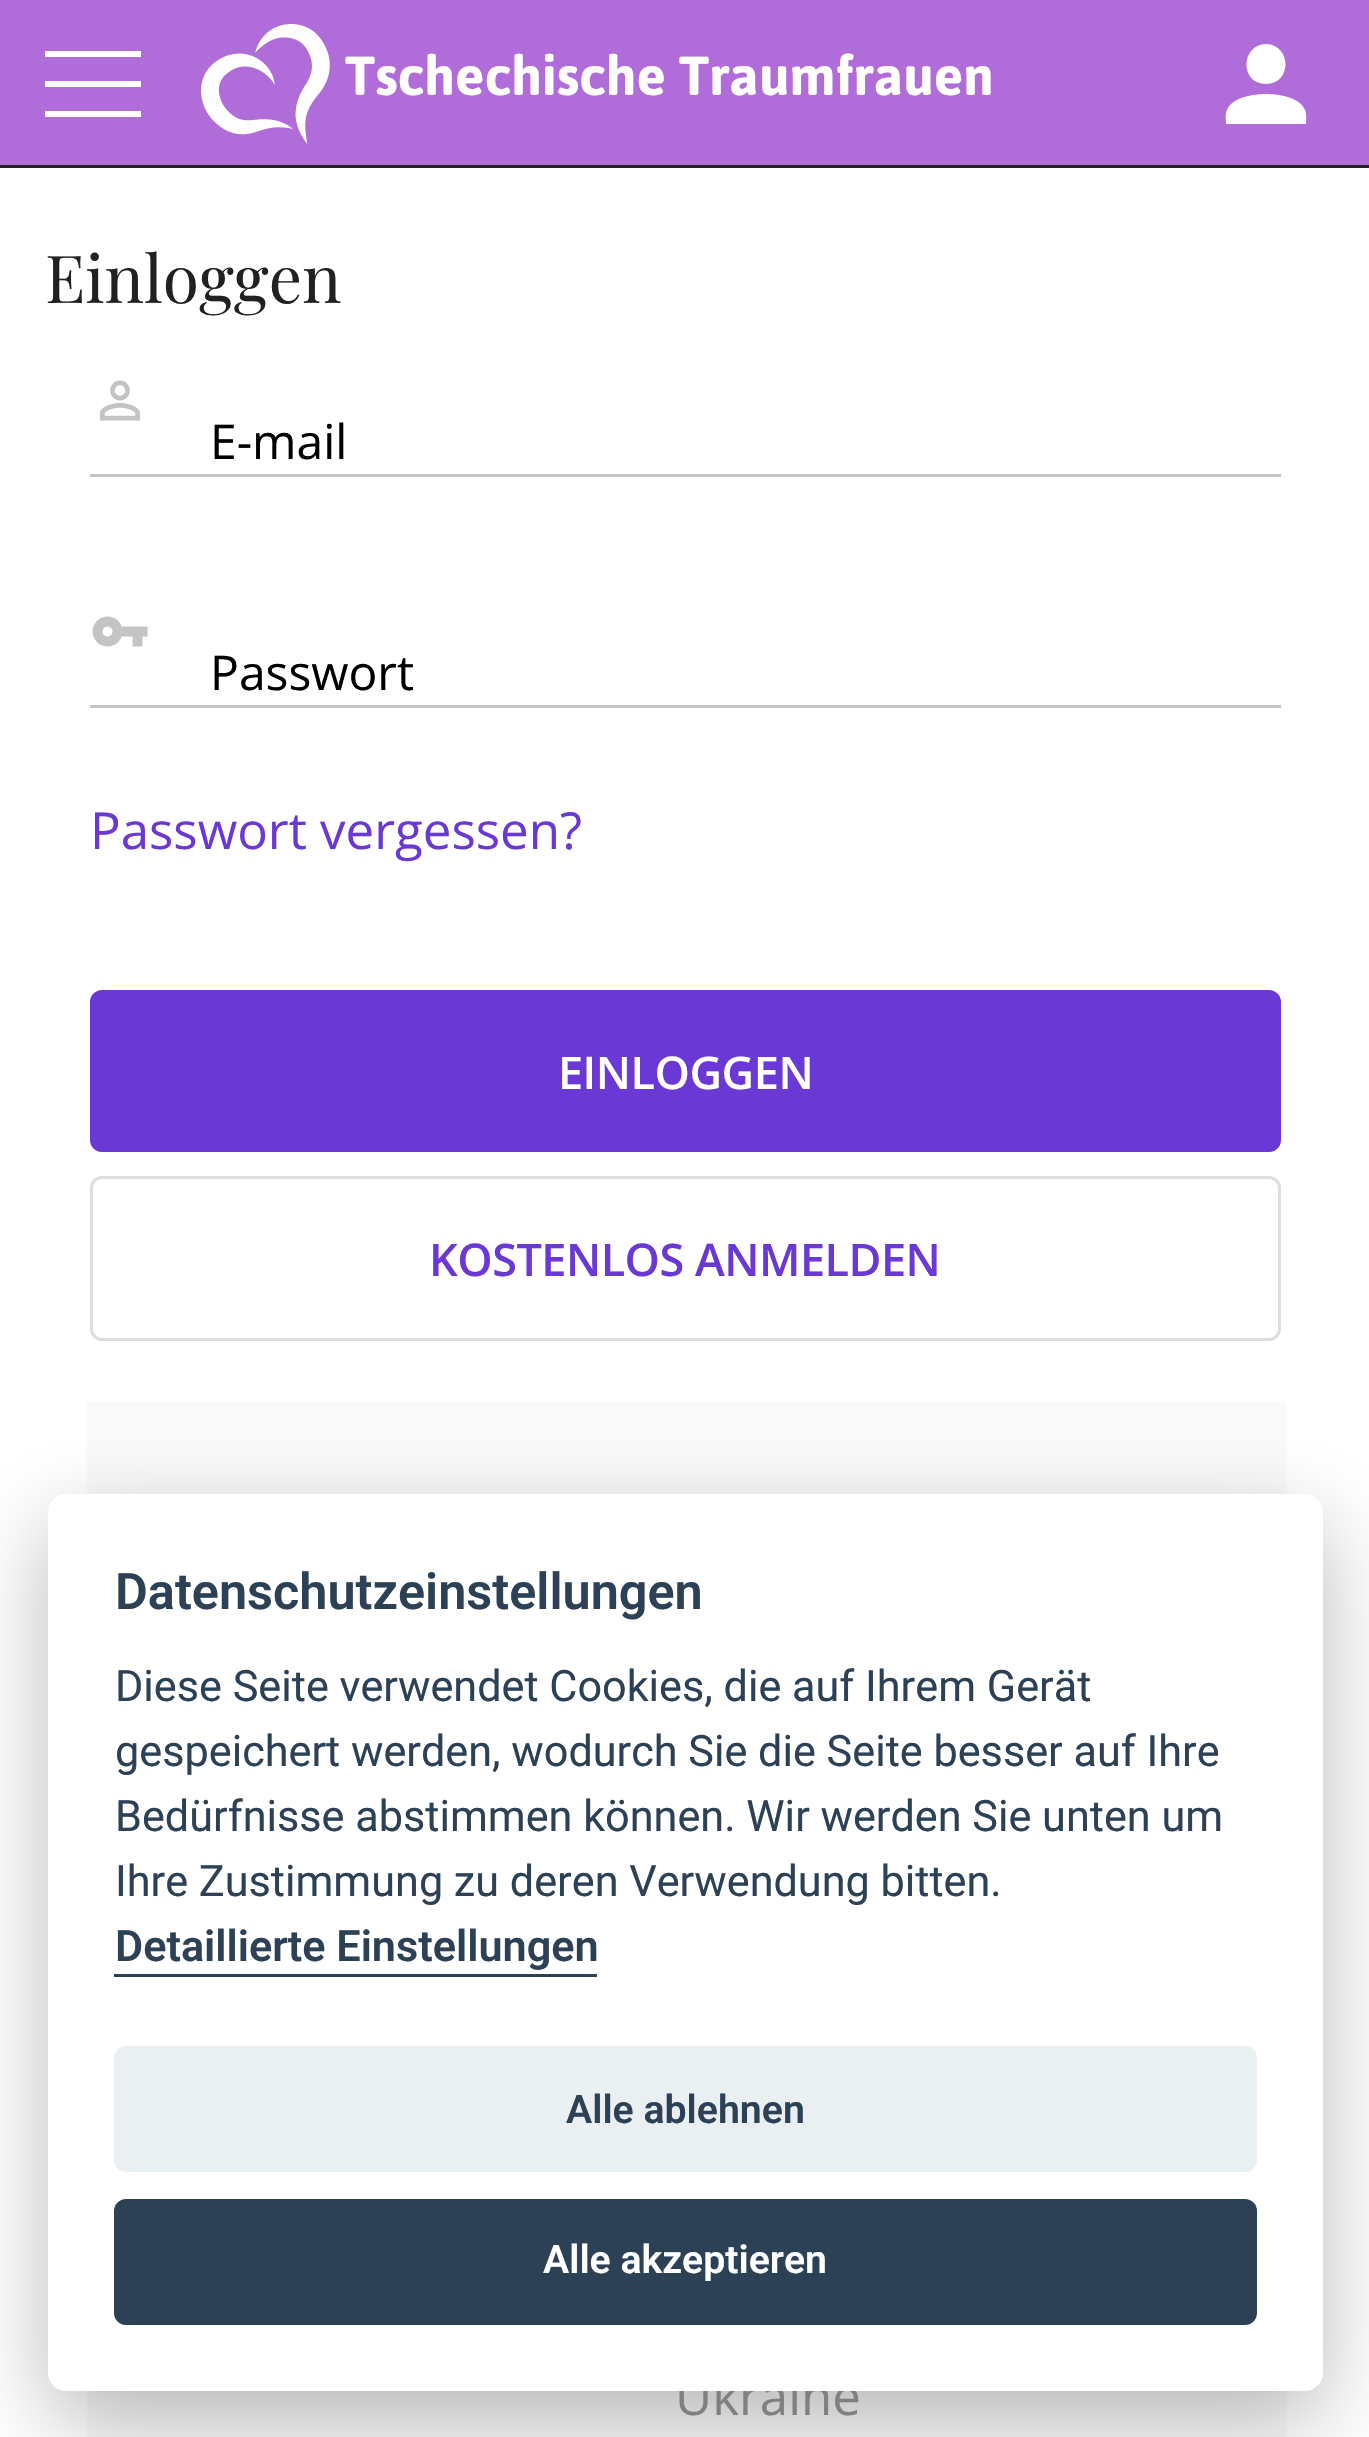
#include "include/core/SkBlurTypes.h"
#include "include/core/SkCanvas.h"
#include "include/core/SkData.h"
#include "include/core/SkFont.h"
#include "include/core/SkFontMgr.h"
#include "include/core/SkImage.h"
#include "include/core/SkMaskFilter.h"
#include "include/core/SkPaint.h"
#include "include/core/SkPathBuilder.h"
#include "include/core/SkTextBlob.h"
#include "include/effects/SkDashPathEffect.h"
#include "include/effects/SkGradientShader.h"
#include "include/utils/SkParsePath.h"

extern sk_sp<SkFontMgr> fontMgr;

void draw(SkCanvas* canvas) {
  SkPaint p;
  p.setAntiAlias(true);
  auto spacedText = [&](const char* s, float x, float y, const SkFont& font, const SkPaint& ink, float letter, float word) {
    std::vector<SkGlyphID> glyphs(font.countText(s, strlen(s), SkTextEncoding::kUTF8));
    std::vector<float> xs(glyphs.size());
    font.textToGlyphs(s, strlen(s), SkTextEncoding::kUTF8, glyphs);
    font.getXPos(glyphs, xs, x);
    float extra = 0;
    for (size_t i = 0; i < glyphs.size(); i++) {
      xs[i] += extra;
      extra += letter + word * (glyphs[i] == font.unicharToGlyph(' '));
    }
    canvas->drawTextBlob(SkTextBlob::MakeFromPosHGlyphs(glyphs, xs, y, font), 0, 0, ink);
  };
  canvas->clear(SK_ColorWHITE);
  p.setColor(SkColorSetRGB(176, 108, 217));
  canvas->drawRect(SkRect::MakeLTRB(0, 0, 1369, 165), p);
  p.setColor(SkColorSetRGB(34, 34, 34));
  canvas->drawRect(SkRect::MakeLTRB(0, 165, 1369, 168), p);
  p.setColor(SK_ColorWHITE);
  canvas->drawRect(SkRect::MakeLTRB(45, 81, 141, 87), p);
  canvas->drawRect(SkRect::MakeLTRB(45, 51, 141, 57), p);
  canvas->drawRect(SkRect::MakeLTRB(45, 111, 141, 117), p);
  canvas->drawImageRect(SkImages::DeferredFromEncodedData(SkData::MakeFromFileName("images/1.png")), SkRect::MakeLTRB(201, 24, 330, 144), SkSamplingOptions());
  canvas->drawPath(SkPathBuilder().moveTo(1266, 44).cubicTo(1292, 45, 1292, 84, 1266, 84).cubicTo(1240, 84, 1240, 45, 1266, 44).close().moveTo(1266, 94).cubicTo(1278, 94, 1300, 97, 1305, 110).cubicTo(1307, 114, 1306, 120, 1306, 124).lineTo(1226, 124).cubicTo(1226, 120, 1225, 114, 1227, 110).cubicTo(1232, 97, 1254, 94, 1266, 94).close().detach(), p);
  canvas->drawImageRect(SkImages::DeferredFromEncodedData(SkData::MakeFromFileName("images/2.png")), SkRect::MakeLTRB(100, 380, 140, 421), SkSamplingOptions());
  p.setColor(SkColorSetRGB(196, 196, 196));
  canvas->drawRect(SkRect::MakeLTRB(90, 474, 1281, 477), p);
  canvas->drawImageRect(SkImages::DeferredFromEncodedData(SkData::MakeFromFileName("images/3.png")), SkRect::MakeLTRB(92, 616, 148, 647), SkSamplingOptions());
  canvas->drawRect(SkRect::MakeLTRB(90, 705, 1281, 708), p);
  p.setColor(SkColorSetRGB(106, 56, 212));
  canvas->drawRoundRect(SkRect::MakeLTRB(91.5f, 991.5f, 1279.5f, 1150.5f), 10.5f, 10.5f, p);
  p.setStyle(SkPaint::kStroke_Style);
  p.setStrokeWidth(3);
  canvas->drawRoundRect(SkRect::MakeLTRB(91.5f, 991.5f, 1279.5f, 1150.5f), 10.5f, 10.5f, p);
  p.setColor(SkColorSetRGB(223, 222, 222));
  canvas->drawRoundRect(SkRect::MakeLTRB(91.5f, 1177.5f, 1279.5f, 1339.5f), 10.5f, 10.5f, p);
  p.setStyle(SkPaint::kFill_Style);
  p.setColor(SkColorSetRGB(250, 250, 250));
  canvas->drawRect(SkRect::MakeLTRB(87, 1401, 1287, 2437), p);
  p.setColor(SkColorSetARGB(71, 2, 2, 3));
  p.setMaskFilter(SkMaskFilter::MakeBlur(kNormal_SkBlurStyle, 45));
  canvas->drawRoundRect(SkRect::MakeLTRB(48, 1524, 1323, 2421), 18, 18, p);
  p.setMaskFilter(nullptr);
  SkFont font1(fontMgr->matchFamilyStyle("Jaldi", SkFontStyle::Bold()), 63);
  font1.setSubpixel(true);
  p.setColor(SK_ColorWHITE);
  canvas->drawString("Tschechische Traumfrauen", 345, 95, font1, p);
  SkFont font2(fontMgr->matchFamilyStyle("Playfair Display", SkFontStyle::Normal()), 66);
  font2.setSubpixel(true);
  p.setColor(SkColorSetRGB(33, 33, 33));
  canvas->drawString("Einloggen", 45, 303, font2, p);
  SkFont font3(fontMgr->matchFamilyStyle("Open Sans", SkFontStyle::Normal()), 48);
  font3.setSubpixel(true);
  p.setColor(SK_ColorBLACK);
  canvas->drawString("E-mail", 210, 459, font3, p);
  canvas->drawString("Passwort", 210, 690, font3, p);
  SkFont font4(fontMgr->matchFamilyStyle("Open Sans", SkFontStyle::Normal()), 51);
  font4.setSubpixel(true);
  p.setColor(SkColorSetRGB(106, 56, 212));
  canvas->drawString("Passwort vergessen?", 90, 849, font4, p);
  SkFont font5(fontMgr->matchFamilyStyle("Open Sans", SkFontStyle(600, SkFontStyle::kNormal_Width, SkFontStyle::kUpright_Slant)), 45);
  font5.setSubpixel(true);
  p.setColor(SK_ColorWHITE);
  spacedText("EINLOGGEN", 558, 1089, font5, p, -0.5f, 0);
  p.setColor(SkColorSetRGB(106, 56, 212));
  spacedText("KOSTENLOS ANMELDEN", 429, 1276, font5, p, -0.5f, 0);
  p.setColor(SkColorSetRGB(128, 128, 128));
  canvas->drawString("Ukraine", 675, 2415, font4, p);
  p.setColor(SK_ColorWHITE);
  canvas->drawRoundRect(SkRect::MakeLTRB(48, 1494, 1323, 2391), 18, 18, p);
  SkFont font6(fontMgr->matchFamilyStyle("Roboto", SkFontStyle(600, SkFontStyle::kNormal_Width, SkFontStyle::kUpright_Slant)), 50.4f);
  font6.setSubpixel(true);
  p.setColor(SkColorSetRGB(45, 65, 86));
  canvas->drawString("Datenschutzeinstellungen", 115, 1609, font6, p);
  SkFont font7(fontMgr->matchFamilyStyle("Roboto", SkFontStyle::Normal()), 43.2f);
  font7.setSubpixel(true);
  canvas->drawString("Diese Seite verwendet Cookies, die auf Ihrem Gerät", 115, 1701, font7, p);
  canvas->drawString("gespeichert werden, wodurch Sie die Seite besser auf Ihre", 115, 1766, font7, p);
  canvas->drawString("Bedürfnisse abstimmen können. Wir werden Sie unten um", 115, 1831, font7, p);
  canvas->drawString("Ihre Zustimmung zu deren Verwendung bitten.", 115, 1896, font7, p);
  SkFont font8(fontMgr->matchFamilyStyle("Roboto", SkFontStyle(600, SkFontStyle::kNormal_Width, SkFontStyle::kUpright_Slant)), 43.2f);
  font8.setSubpixel(true);
  canvas->drawString("Detaillierte Einstellungen", 115, 1961, font8, p);
  canvas->drawRect(SkRect::MakeLTRB(114, 1974, 597, 1977), p);
  p.setColor(SkColorSetRGB(234, 239, 242));
  canvas->drawRoundRect(SkRect::MakeLTRB(114, 2046, 1257, 2172), 12, 12, p);
  SkFont font9(fontMgr->matchFamilyStyle("Roboto", SkFontStyle(600, SkFontStyle::kNormal_Width, SkFontStyle::kUpright_Slant)), 39.25f);
  font9.setSubpixel(true);
  p.setColor(SkColorSetRGB(45, 65, 86));
  canvas->drawString("Alle ablehnen", 566, 2123, font9, p);
  canvas->drawRoundRect(SkRect::MakeLTRB(114, 2199, 1257, 2325), 12, 12, p);
  p.setColor(SK_ColorWHITE);
  canvas->drawString("Alle akzeptieren", 543, 2273, font9, p);
}
